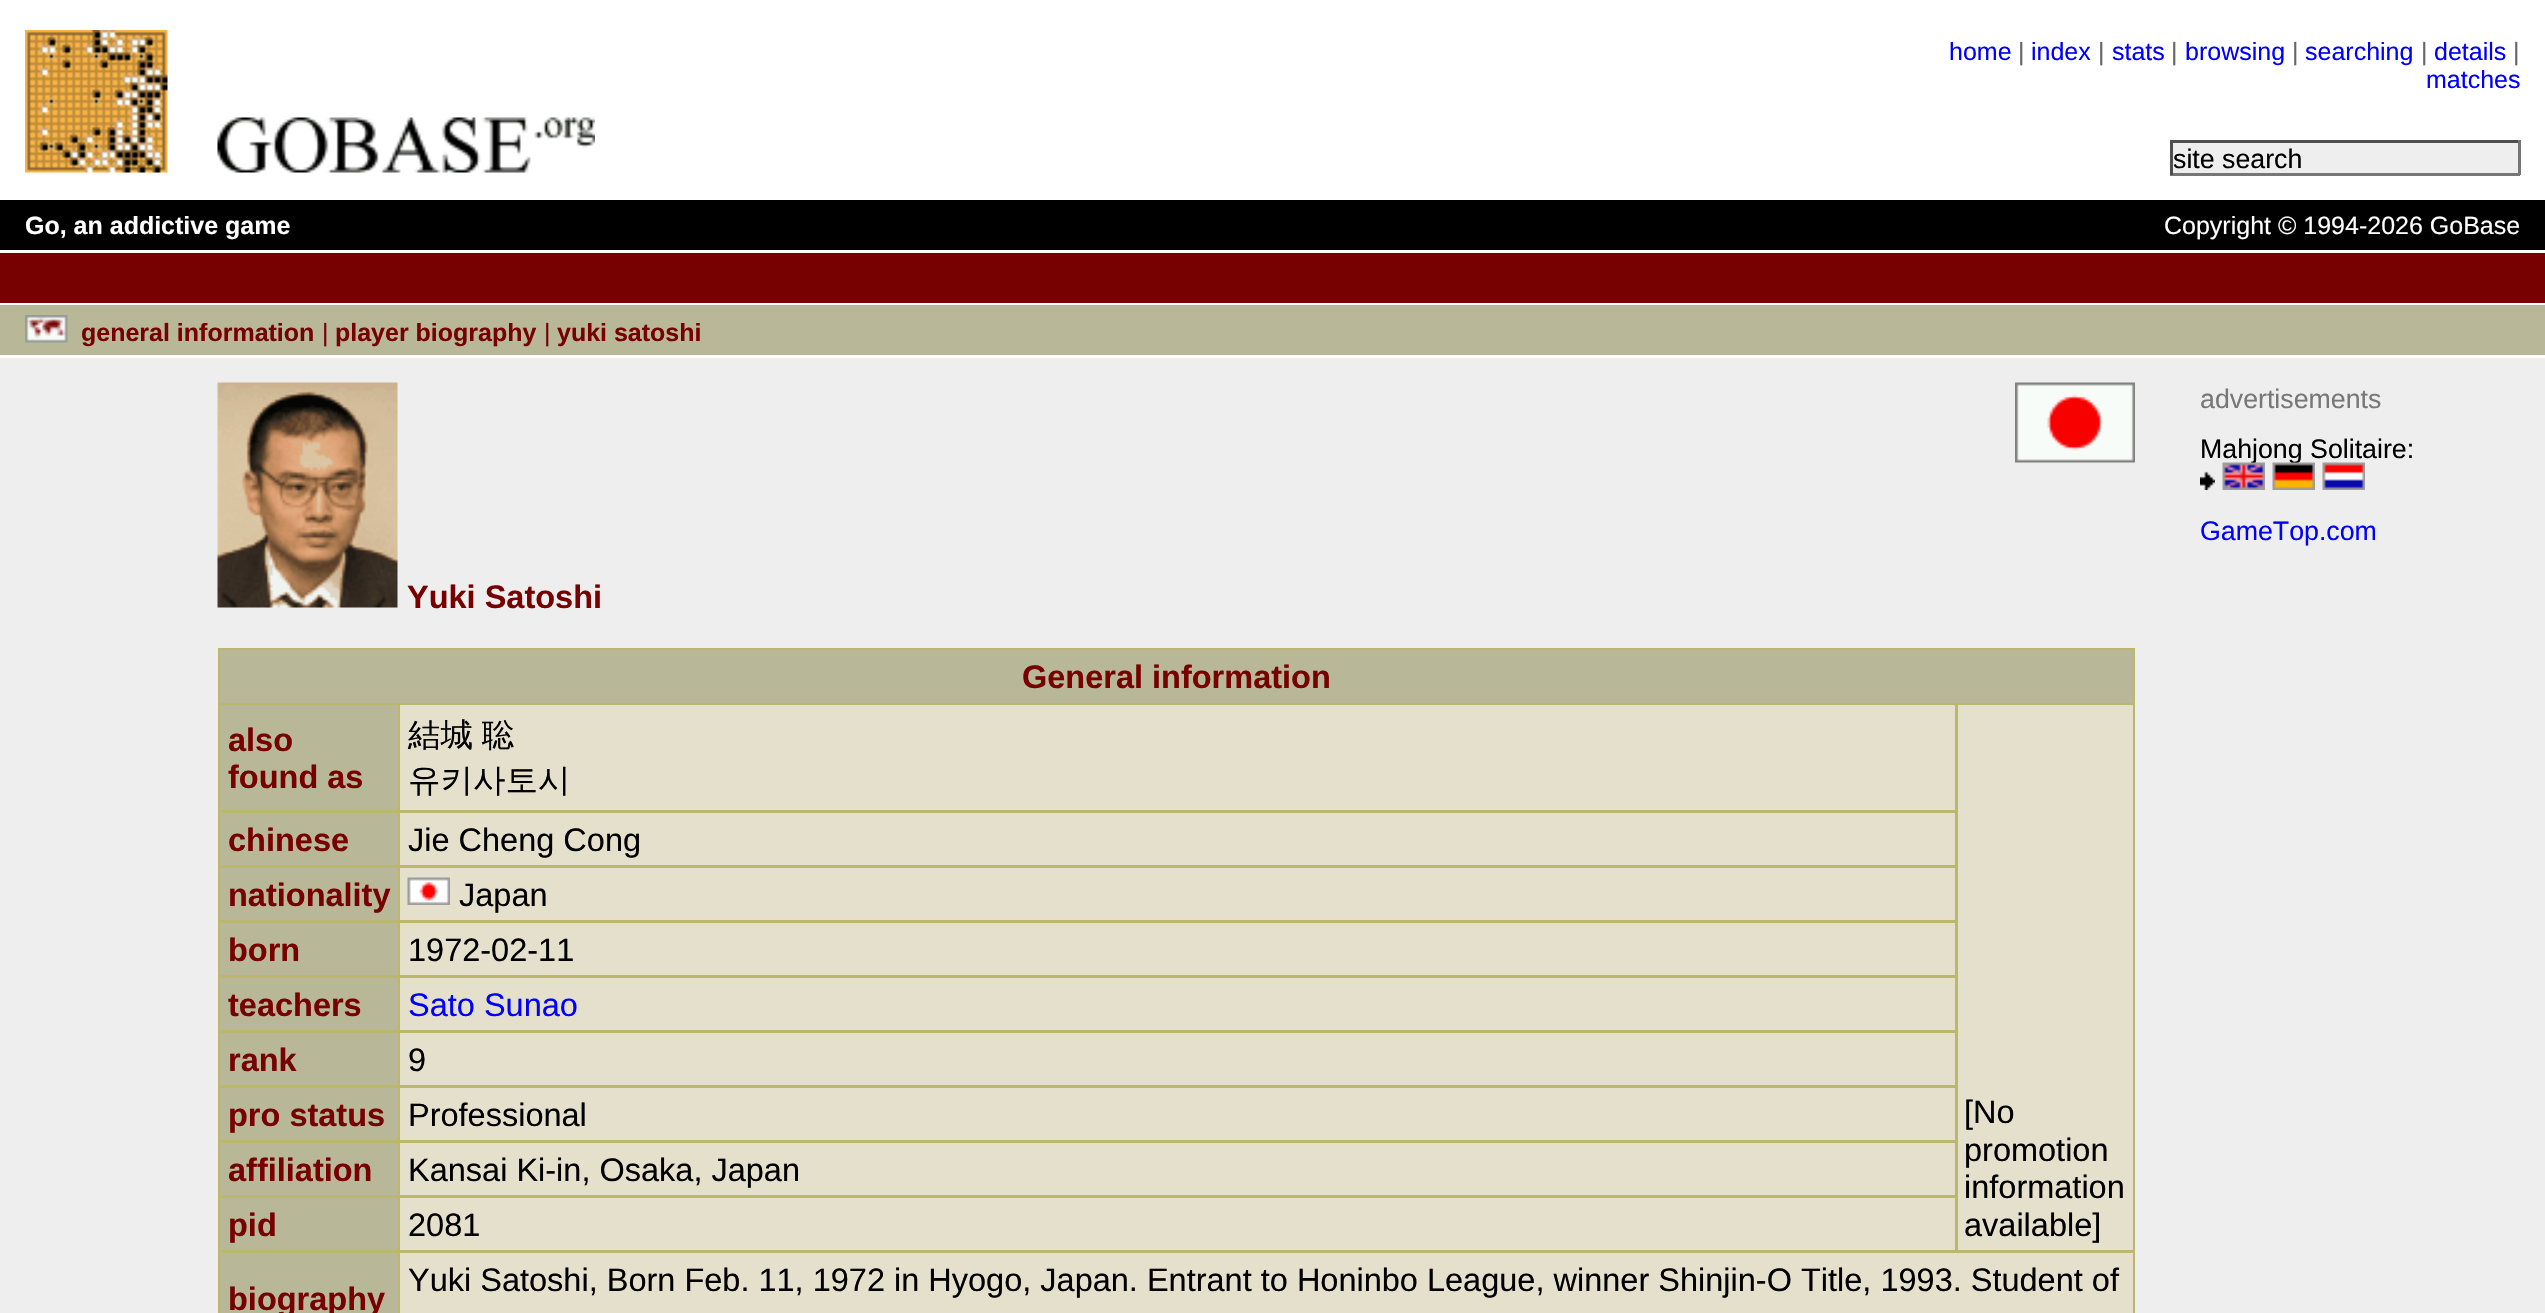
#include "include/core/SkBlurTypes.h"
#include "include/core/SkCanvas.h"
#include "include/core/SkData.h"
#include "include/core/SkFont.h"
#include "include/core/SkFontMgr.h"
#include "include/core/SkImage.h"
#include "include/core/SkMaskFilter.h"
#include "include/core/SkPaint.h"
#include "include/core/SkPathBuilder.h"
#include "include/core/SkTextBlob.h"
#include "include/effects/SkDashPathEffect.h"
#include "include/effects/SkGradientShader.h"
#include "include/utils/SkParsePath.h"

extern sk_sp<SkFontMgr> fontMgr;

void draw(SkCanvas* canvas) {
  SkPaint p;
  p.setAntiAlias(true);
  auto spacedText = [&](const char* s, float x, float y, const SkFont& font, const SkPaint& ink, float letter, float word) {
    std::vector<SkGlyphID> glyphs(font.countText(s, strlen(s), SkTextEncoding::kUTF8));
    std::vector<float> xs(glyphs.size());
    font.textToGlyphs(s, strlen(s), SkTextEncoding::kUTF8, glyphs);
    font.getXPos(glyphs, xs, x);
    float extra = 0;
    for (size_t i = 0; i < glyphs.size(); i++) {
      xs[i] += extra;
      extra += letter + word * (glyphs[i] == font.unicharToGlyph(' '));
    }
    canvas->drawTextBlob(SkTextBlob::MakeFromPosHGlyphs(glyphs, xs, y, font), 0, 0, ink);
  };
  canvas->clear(SkColorSetRGB(238, 238, 238));
  p.setColor(SK_ColorWHITE);
  canvas->drawRect(SkRect::MakeLTRB(0, 0, 25, 200), p);
  canvas->drawRect(SkRect::MakeLTRB(25, 0, 2520, 25), p);
  canvas->drawRect(SkRect::MakeLTRB(2520, 0, 2545, 200), p);
  canvas->drawRect(SkRect::MakeLTRB(25, 25, 1865, 175), p);
  canvas->drawImageRect(SkImages::DeferredFromEncodedData(SkData::MakeFromFileName("images/1.png")), SkRect::MakeLTRB(25, 30, 168, 173), SkSamplingOptions());
  canvas->drawImageRect(SkImages::DeferredFromEncodedData(SkData::MakeFromFileName("images/2.png")), SkRect::MakeLTRB(217, 117, 595, 173), SkSamplingOptions());
  canvas->drawRect(SkRect::MakeLTRB(1865, 25, 2520, 175), p);
  p.setColor(SkColorSetRGB(238, 238, 238));
  canvas->drawRect(SkRect::MakeLTRB(2173, 143, 2518, 173), p);
  p.setColor(SkColorSetRGB(79, 79, 79));
  canvas->drawRect(SkRect::MakeLTRB(2170, 140, 2520, 143), p);
  p.setColor(SkColorSetRGB(118, 118, 118));
  canvas->drawRect(SkRect::MakeLTRB(2518, 140, 2521, 175), p);
  p.setColor(SK_ColorWHITE);
  canvas->drawRect(SkRect::MakeLTRB(25, 175, 2520, 200), p);
  p.setColor(SkColorSetRGB(118, 118, 118));
  canvas->drawRect(SkRect::MakeLTRB(2170, 173, 2520, 176), p);
  p.setColor(SkColorSetRGB(79, 79, 79));
  canvas->drawRect(SkRect::MakeLTRB(2170, 140, 2173, 175), p);
  p.setColor(SK_ColorBLACK);
  canvas->drawRect(SkRect::MakeLTRB(0, 200, 2545, 250), p);
  p.setColor(SK_ColorWHITE);
  canvas->drawRect(SkRect::MakeLTRB(0, 250, 2545, 253), p);
  p.setColor(SkColorSetRGB(119, 0, 0));
  canvas->drawRect(SkRect::MakeLTRB(0, 253, 2545, 303), p);
  p.setColor(SK_ColorWHITE);
  canvas->drawRect(SkRect::MakeLTRB(0, 303, 2545, 305), p);
  p.setColor(SkColorSetRGB(184, 184, 152));
  canvas->drawRect(SkRect::MakeLTRB(0, 305, 2545, 355), p);
  canvas->drawImageRect(SkImages::DeferredFromEncodedData(SkData::MakeFromFileName("images/3.png")), SkRect::MakeLTRB(25, 315, 68, 343), SkSamplingOptions());
  p.setColor(SK_ColorWHITE);
  canvas->drawRect(SkRect::MakeLTRB(0, 355, 2545, 358), p);
  canvas->drawImageRect(SkImages::DeferredFromEncodedData(SkData::MakeFromFileName("images/4.png")), SkRect::MakeLTRB(2200, 471, 2215, 490), SkSamplingOptions());
  canvas->drawImageRect(SkImages::DeferredFromEncodedData(SkData::MakeFromFileName("images/8.png")), SkRect::MakeLTRB(217, 382, 398, 608), SkSamplingOptions());
  canvas->drawImageRect(SkImages::DeferredFromEncodedData(SkData::MakeFromFileName("images/9.png")), SkRect::MakeLTRB(2015, 382, 2135, 463), SkSamplingOptions());
  p.setColor(SkColorSetRGB(189, 183, 107));
  canvas->drawRect(SkRect::MakeLTRB(218, 648, 2135, 1313), p);
  p.setColor(SkColorSetRGB(184, 184, 152));
  canvas->drawRect(SkRect::MakeLTRB(220, 650, 2133, 703), p);
  canvas->drawRect(SkRect::MakeLTRB(220, 705, 398, 810), p);
  p.setColor(SkColorSetRGB(228, 224, 204));
  canvas->drawRect(SkRect::MakeLTRB(400, 705, 1955, 810), p);
  canvas->drawRect(SkRect::MakeLTRB(1958, 705, 2133, 1250), p);
  p.setColor(SkColorSetRGB(184, 184, 152));
  canvas->drawRect(SkRect::MakeLTRB(220, 813, 398, 865), p);
  p.setColor(SkColorSetRGB(228, 224, 204));
  canvas->drawRect(SkRect::MakeLTRB(400, 813, 1955, 865), p);
  p.setColor(SkColorSetRGB(184, 184, 152));
  canvas->drawRect(SkRect::MakeLTRB(220, 868, 398, 920), p);
  p.setColor(SkColorSetRGB(228, 224, 204));
  canvas->drawRect(SkRect::MakeLTRB(400, 868, 1955, 920), p);
  canvas->drawImageRect(SkImages::DeferredFromEncodedData(SkData::MakeFromFileName("images/10.png")), SkRect::MakeLTRB(407, 877, 450, 905), SkSamplingOptions());
  p.setColor(SkColorSetRGB(184, 184, 152));
  canvas->drawRect(SkRect::MakeLTRB(220, 923, 398, 975), p);
  p.setColor(SkColorSetRGB(228, 224, 204));
  canvas->drawRect(SkRect::MakeLTRB(400, 923, 1955, 975), p);
  p.setColor(SkColorSetRGB(184, 184, 152));
  canvas->drawRect(SkRect::MakeLTRB(220, 978, 398, 1030), p);
  p.setColor(SkColorSetRGB(228, 224, 204));
  canvas->drawRect(SkRect::MakeLTRB(400, 978, 1955, 1030), p);
  p.setColor(SkColorSetRGB(184, 184, 152));
  canvas->drawRect(SkRect::MakeLTRB(220, 1033, 398, 1085), p);
  p.setColor(SkColorSetRGB(228, 224, 204));
  canvas->drawRect(SkRect::MakeLTRB(400, 1033, 1955, 1085), p);
  p.setColor(SkColorSetRGB(184, 184, 152));
  canvas->drawRect(SkRect::MakeLTRB(220, 1088, 398, 1140), p);
  p.setColor(SkColorSetRGB(228, 224, 204));
  canvas->drawRect(SkRect::MakeLTRB(400, 1088, 1955, 1140), p);
  p.setColor(SkColorSetRGB(184, 184, 152));
  canvas->drawRect(SkRect::MakeLTRB(220, 1143, 398, 1195), p);
  p.setColor(SkColorSetRGB(228, 224, 204));
  canvas->drawRect(SkRect::MakeLTRB(400, 1143, 1955, 1195), p);
  p.setColor(SkColorSetRGB(184, 184, 152));
  canvas->drawRect(SkRect::MakeLTRB(220, 1198, 398, 1250), p);
  p.setColor(SkColorSetRGB(228, 224, 204));
  canvas->drawRect(SkRect::MakeLTRB(400, 1198, 1955, 1250), p);
  p.setColor(SkColorSetRGB(184, 184, 152));
  canvas->drawRect(SkRect::MakeLTRB(220, 1253, 398, 1313), p);
  p.setColor(SkColorSetRGB(228, 224, 204));
  canvas->drawRect(SkRect::MakeLTRB(400, 1253, 2133, 1313), p);
  SkFont font1(fontMgr->matchFamilyStyle("Liberation Sans", SkFontStyle::Normal()), 25);
  font1.setSubpixel(true);
  p.setColor(SkColorSetRGB(0, 0, 255));
  canvas->drawString("home", 1949, 60, font1, p);
  p.setColor(SkColorSetRGB(102, 102, 102));
  canvas->drawString("|", 2018, 60, font1, p);
  p.setColor(SkColorSetRGB(0, 0, 255));
  canvas->drawString("index", 2031, 60, font1, p);
  p.setColor(SkColorSetRGB(102, 102, 102));
  canvas->drawString("|", 2098, 60, font1, p);
  p.setColor(SkColorSetRGB(0, 0, 255));
  canvas->drawString("stats", 2112, 60, font1, p);
  p.setColor(SkColorSetRGB(102, 102, 102));
  canvas->drawString("|", 2171, 60, font1, p);
  p.setColor(SkColorSetRGB(0, 0, 255));
  canvas->drawString("browsing", 2185, 60, font1, p);
  p.setColor(SkColorSetRGB(102, 102, 102));
  canvas->drawString("|", 2292, 60, font1, p);
  p.setColor(SkColorSetRGB(0, 0, 255));
  canvas->drawString("searching", 2305, 60, font1, p);
  p.setColor(SkColorSetRGB(102, 102, 102));
  canvas->drawString("|", 2421, 60, font1, p);
  p.setColor(SkColorSetRGB(0, 0, 255));
  canvas->drawString("details", 2434, 60, font1, p);
  p.setColor(SkColorSetRGB(102, 102, 102));
  canvas->drawString("|", 2513, 60, font1, p);
  p.setColor(SkColorSetRGB(0, 0, 255));
  canvas->drawString("matches", 2426, 88, font1, p);
  SkFont font2(fontMgr->matchFamilyStyle("Liberation Sans", SkFontStyle::Normal()), 26.75f);
  font2.setSubpixel(true);
  p.setColor(SK_ColorBLACK);
  canvas->drawString("site search", 2173, 168, font2, p);
  SkFont font3(fontMgr->matchFamilyStyle("Liberation Sans", SkFontStyle::Bold()), 25);
  font3.setSubpixel(true);
  p.setColor(SK_ColorWHITE);
  canvas->drawString("Go, an addictive game", 25, 234, font3, p);
  canvas->drawString("Copyright © 1994-2026 GoBase", 2164, 234, font1, p);
  p.setColor(SkColorSetRGB(119, 0, 0));
  canvas->drawString("general information", 81, 341, font3, p);
  canvas->drawString("|", 322, 341, font1, p);
  canvas->drawString("player biography", 335, 341, font3, p);
  canvas->drawString("|", 544, 341, font1, p);
  canvas->drawString("yuki satoshi", 557, 341, font3, p);
  p.setColor(SkColorSetRGB(119, 119, 119));
  canvas->drawString("advertisements", 2200, 408, font2, p);
  p.setColor(SK_ColorBLACK);
  canvas->drawString("Mahjong Solitaire:", 2200, 458, font2, p);
  canvas->drawImageRect(SkImages::DeferredFromEncodedData(SkData::MakeFromFileName("images/5.png")), SkRect::MakeLTRB(2222, 462, 2265, 490), SkSamplingOptions());
  canvas->drawImageRect(SkImages::DeferredFromEncodedData(SkData::MakeFromFileName("images/6.png")), SkRect::MakeLTRB(2272, 462, 2315, 490), SkSamplingOptions());
  canvas->drawImageRect(SkImages::DeferredFromEncodedData(SkData::MakeFromFileName("images/7.png")), SkRect::MakeLTRB(2322, 462, 2365, 490), SkSamplingOptions());
  p.setColor(SkColorSetRGB(0, 0, 255));
  canvas->drawString("GameTop.com", 2200, 540, font2, p);
  SkFont font4(fontMgr->matchFamilyStyle("Liberation Sans", SkFontStyle::Bold()), 32.5f);
  font4.setSubpixel(true);
  p.setColor(SkColorSetRGB(119, 0, 0));
  canvas->drawString("Yuki Satoshi", 407, 608, font4, p);
  canvas->drawString("General information", 1022, 688, font4, p);
  canvas->drawString("also", 228, 751, font4, p);
  canvas->drawString("found as", 228, 788, font4, p);
  SkFont font5(fontMgr->matchFamilyStyle("WenQuanYi Zen Hei", SkFontStyle(500, SkFontStyle::kNormal_Width, SkFontStyle::kUpright_Slant)), 32.5f);
  font5.setSubpixel(true);
  p.setColor(SK_ColorBLACK);
  spacedText("結城 聡", 408, 746, font5, p, 0, -1);
  canvas->drawString("유키사토시", 408, 791, font5, p);
  SkFont font6(fontMgr->matchFamilyStyle("Liberation Sans", SkFontStyle::Normal()), 32.5f);
  font6.setSubpixel(true);
  canvas->drawString("[No", 1964, 1123, font6, p);
  canvas->drawString("promotion", 1964, 1161, font6, p);
  canvas->drawString("information", 1964, 1198, font6, p);
  canvas->drawString("available]", 1964, 1236, font6, p);
  p.setColor(SkColorSetRGB(119, 0, 0));
  canvas->drawString("chinese", 228, 851, font4, p);
  p.setColor(SK_ColorBLACK);
  canvas->drawString("Jie Cheng Cong", 408, 851, font6, p);
  p.setColor(SkColorSetRGB(119, 0, 0));
  canvas->drawString("nationality", 228, 906, font4, p);
  p.setColor(SK_ColorBLACK);
  canvas->drawString("Japan", 459, 906, font6, p);
  p.setColor(SkColorSetRGB(119, 0, 0));
  canvas->drawString("born", 228, 961, font4, p);
  p.setColor(SK_ColorBLACK);
  canvas->drawString("1972-02-11", 408, 961, font6, p);
  p.setColor(SkColorSetRGB(119, 0, 0));
  canvas->drawString("teachers", 228, 1016, font4, p);
  p.setColor(SkColorSetRGB(0, 0, 255));
  canvas->drawString("Sato Sunao", 408, 1016, font6, p);
  p.setColor(SkColorSetRGB(119, 0, 0));
  canvas->drawString("rank", 228, 1071, font4, p);
  p.setColor(SK_ColorBLACK);
  canvas->drawString("9", 408, 1071, font6, p);
  p.setColor(SkColorSetRGB(119, 0, 0));
  canvas->drawString("pro status", 228, 1126, font4, p);
  p.setColor(SK_ColorBLACK);
  canvas->drawString("Professional", 408, 1126, font6, p);
  p.setColor(SkColorSetRGB(119, 0, 0));
  canvas->drawString("affiliation", 228, 1181, font4, p);
  p.setColor(SK_ColorBLACK);
  canvas->drawString("Kansai Ki-in, Osaka, Japan", 408, 1181, font6, p);
  p.setColor(SkColorSetRGB(119, 0, 0));
  canvas->drawString("pid", 228, 1236, font4, p);
  p.setColor(SK_ColorBLACK);
  canvas->drawString("2081", 408, 1236, font6, p);
  p.setColor(SkColorSetRGB(119, 0, 0));
  canvas->drawString("biography", 228, 1310, font4, p);
  p.setColor(SK_ColorBLACK);
  canvas->drawString("Yuki Satoshi, Born Feb. 11, 1972 in Hyogo, Japan. Entrant to Honinbo League, winner Shinjin-O Title, 1993. Student of", 408, 1291, font6, p);
}
